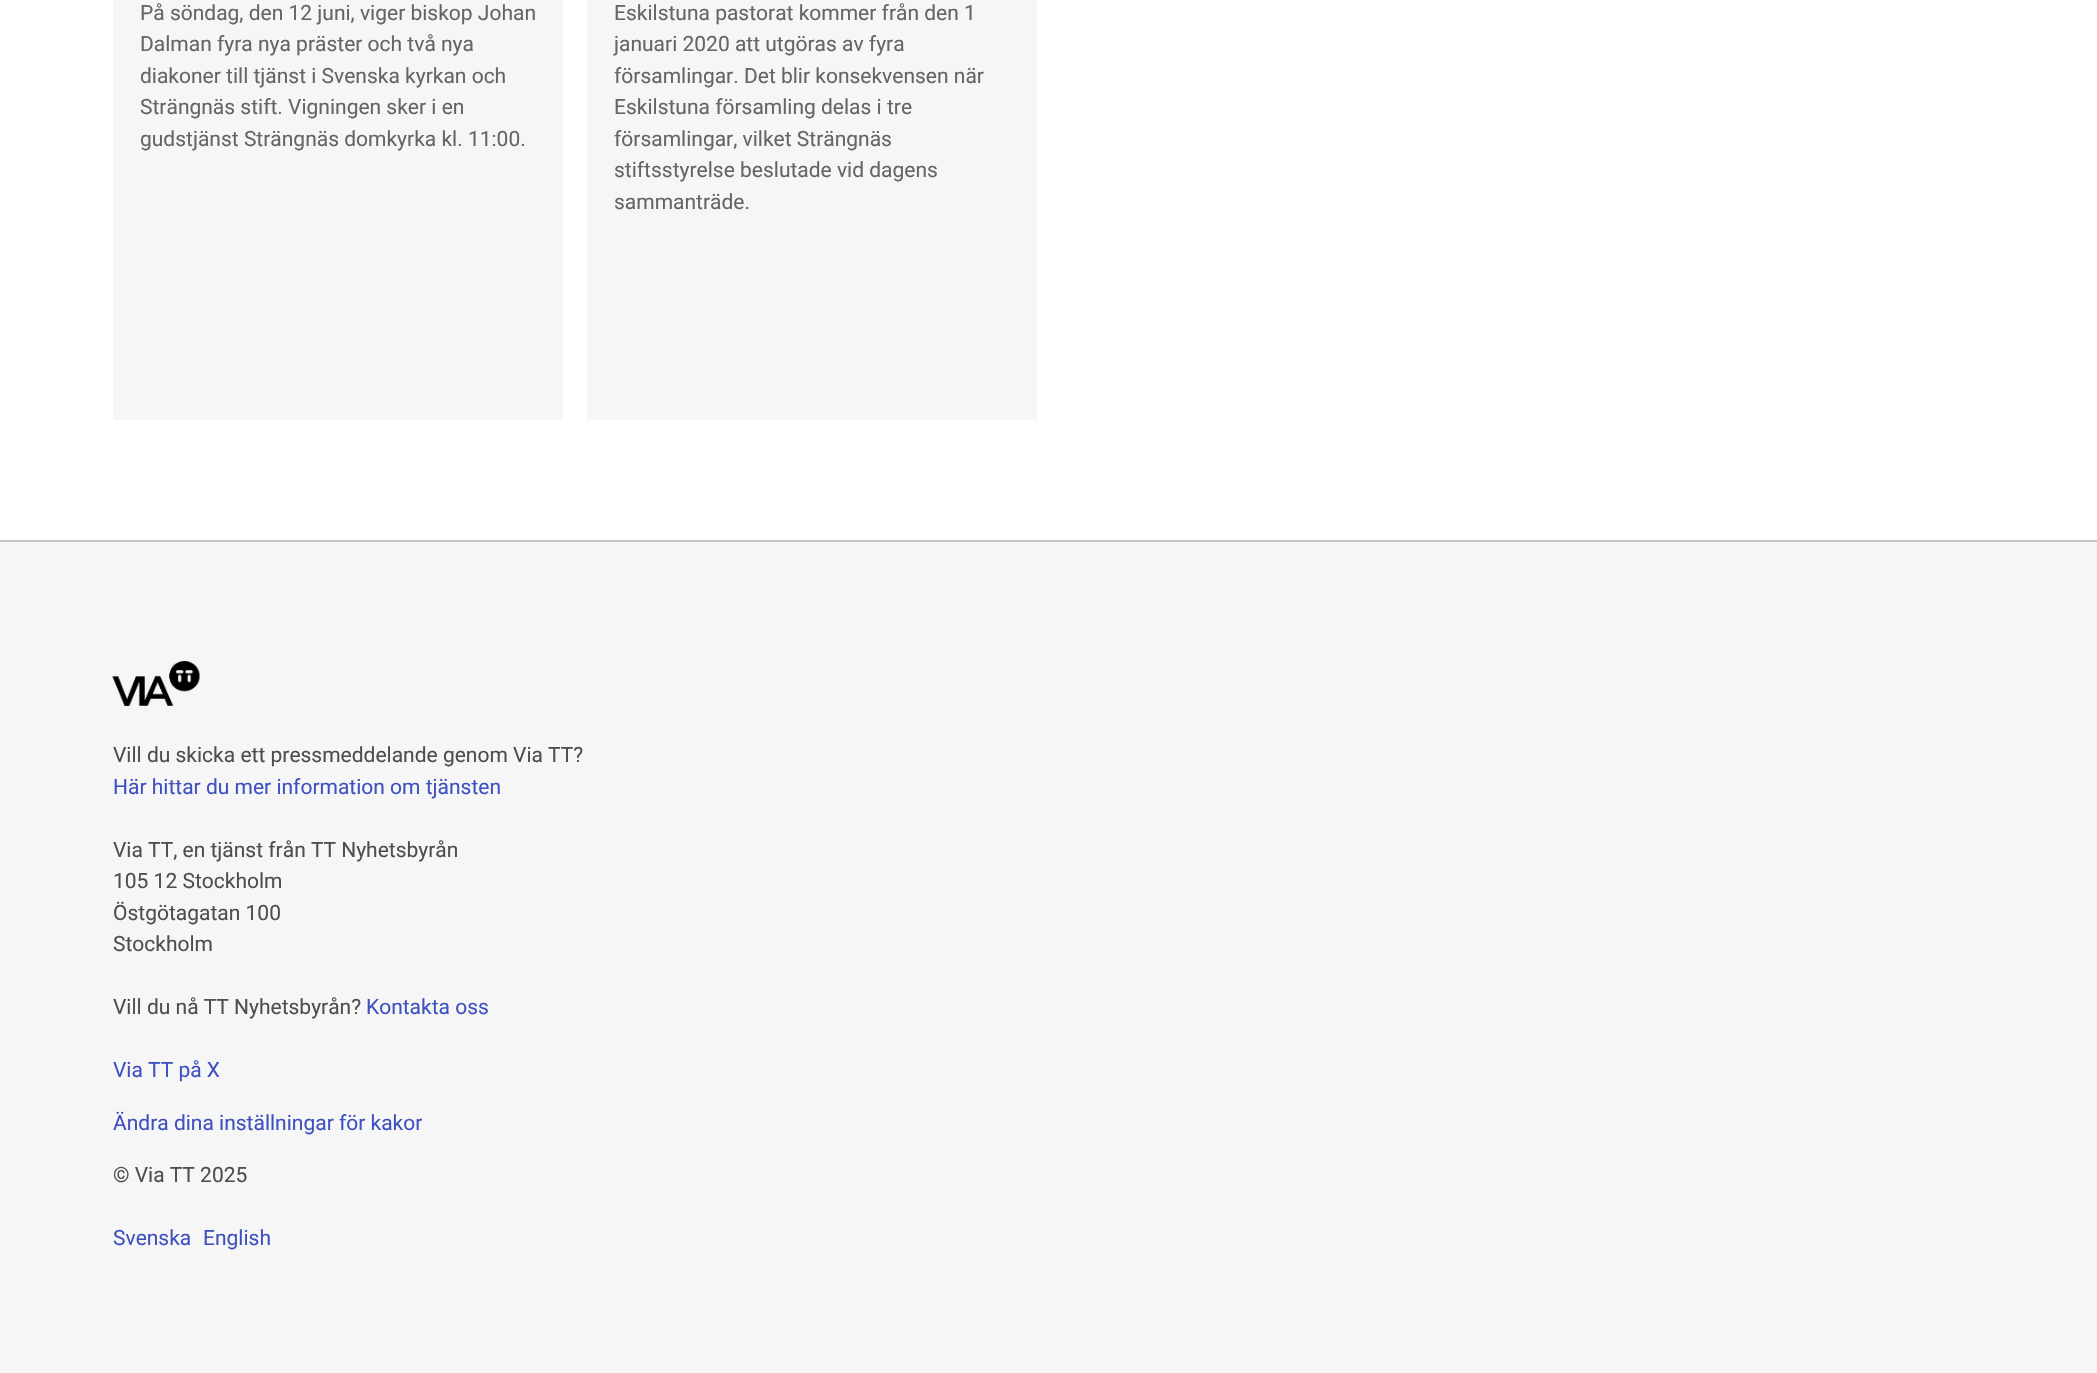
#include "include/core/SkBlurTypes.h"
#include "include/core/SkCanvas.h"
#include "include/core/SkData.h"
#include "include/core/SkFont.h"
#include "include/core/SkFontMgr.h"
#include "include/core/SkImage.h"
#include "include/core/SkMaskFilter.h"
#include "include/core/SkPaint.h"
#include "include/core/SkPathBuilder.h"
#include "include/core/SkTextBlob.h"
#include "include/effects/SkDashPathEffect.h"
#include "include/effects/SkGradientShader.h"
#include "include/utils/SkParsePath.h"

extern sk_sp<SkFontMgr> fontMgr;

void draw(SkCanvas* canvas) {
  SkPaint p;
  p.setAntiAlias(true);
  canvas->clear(SK_ColorWHITE);
  p.setColor(SkColorSetRGB(246, 246, 246));
  canvas->drawRect(SkRect::MakeLTRB(113, 0, 563, 420), p);
  canvas->drawRect(SkRect::MakeLTRB(587, 0, 1037, 420), p);
  canvas->drawRect(SkRect::MakeLTRB(0, 542, 2097, 1373), p);
  p.setColor(SkColorSetRGB(198, 198, 198));
  canvas->drawRect(SkRect::MakeLTRB(0, 540, 2097, 542), p);
  canvas->drawImageRect(SkImages::DeferredFromEncodedData(SkData::MakeFromFileName("images/1.png")), SkRect::MakeLTRB(112, 661, 200, 706), SkSamplingOptions());
  SkFont font1(fontMgr->matchFamilyStyle("Roboto", SkFontStyle::Normal()), 21);
  font1.setSubpixel(true);
  p.setColor(SkColorSetRGB(101, 101, 101));
  canvas->drawString("På söndag, den 12 juni, viger biskop Johan", 140, 20, font1, p);
  canvas->drawString("Dalman fyra nya präster och två nya", 140, 51, font1, p);
  canvas->drawString("diakoner till tjänst i Svenska kyrkan och", 140, 83, font1, p);
  canvas->drawString("Strängnäs stift. Vigningen sker i en", 140, 114, font1, p);
  canvas->drawString("gudstjänst Strängnäs domkyrka kl. 11:00.", 140, 146, font1, p);
  canvas->drawString("Eskilstuna pastorat kommer från den 1", 614, 20, font1, p);
  canvas->drawString("januari 2020 att utgöras av fyra", 614, 51, font1, p);
  canvas->drawString("församlingar. Det blir konsekvensen när", 614, 83, font1, p);
  canvas->drawString("Eskilstuna församling delas i tre", 614, 114, font1, p);
  canvas->drawString("församlingar, vilket Strängnäs", 614, 146, font1, p);
  canvas->drawString("stiftsstyrelse beslutade vid dagens", 614, 177, font1, p);
  canvas->drawString("sammanträde.", 614, 209, font1, p);
  p.setColor(SkColorSetRGB(78, 78, 78));
  canvas->drawString("Vill du skicka ett pressmeddelande genom Via TT?", 113, 762, font1, p);
  p.setColor(SkColorSetRGB(63, 81, 191));
  canvas->drawString("Här hittar du mer information om tjänsten", 113, 794, font1, p);
  p.setColor(SkColorSetRGB(78, 78, 78));
  canvas->drawString("Via TT, en tjänst från TT Nyhetsbyrån", 113, 857, font1, p);
  canvas->drawString("105 12 Stockholm", 113, 888, font1, p);
  canvas->drawString("Östgötagatan 100", 113, 920, font1, p);
  canvas->drawString("Stockholm", 113, 951, font1, p);
  canvas->drawString("Vill du nå TT Nyhetsbyrån?", 113, 1014, font1, p);
  p.setColor(SkColorSetRGB(63, 81, 191));
  canvas->drawString("Kontakta oss", 366, 1014, font1, p);
  canvas->drawString("Via TT på X", 113, 1077, font1, p);
  canvas->drawString("Ändra dina inställningar för kakor", 113, 1130, font1, p);
  p.setColor(SkColorSetRGB(78, 78, 78));
  canvas->drawString("© Via TT 2025", 113, 1182, font1, p);
  p.setColor(SkColorSetRGB(63, 81, 191));
  canvas->drawString("Svenska", 113, 1245, font1, p);
  canvas->drawString("English", 203, 1245, font1, p);
}
